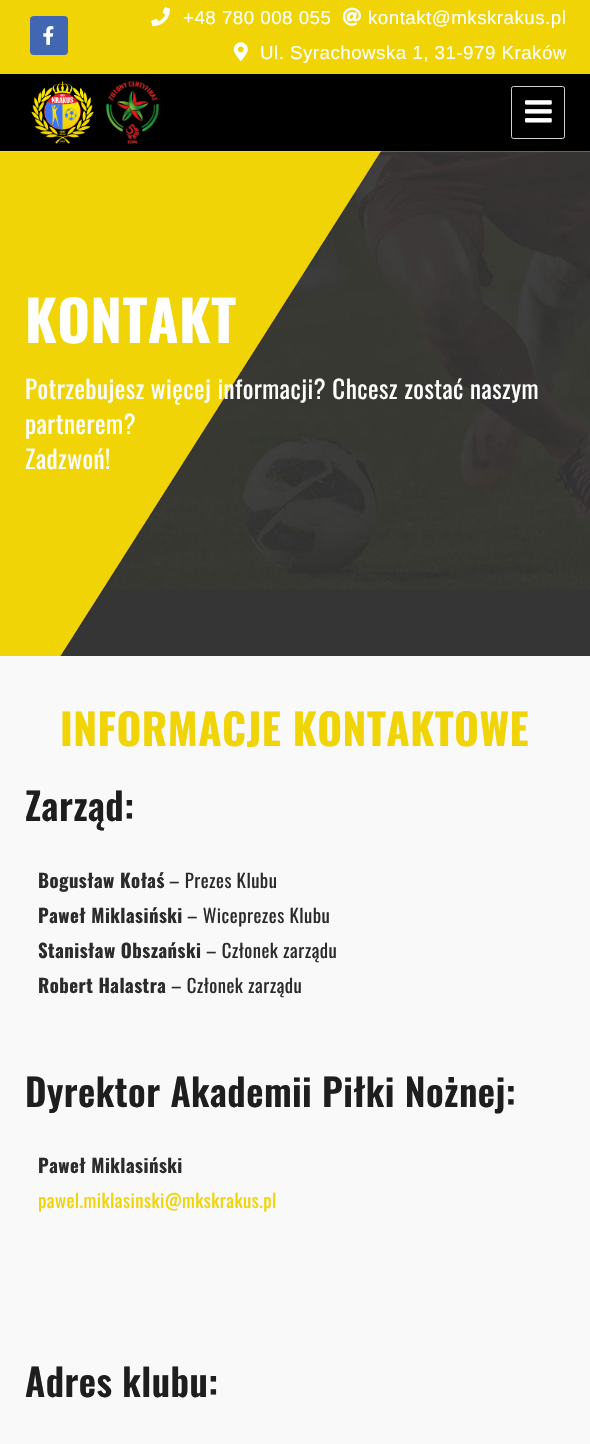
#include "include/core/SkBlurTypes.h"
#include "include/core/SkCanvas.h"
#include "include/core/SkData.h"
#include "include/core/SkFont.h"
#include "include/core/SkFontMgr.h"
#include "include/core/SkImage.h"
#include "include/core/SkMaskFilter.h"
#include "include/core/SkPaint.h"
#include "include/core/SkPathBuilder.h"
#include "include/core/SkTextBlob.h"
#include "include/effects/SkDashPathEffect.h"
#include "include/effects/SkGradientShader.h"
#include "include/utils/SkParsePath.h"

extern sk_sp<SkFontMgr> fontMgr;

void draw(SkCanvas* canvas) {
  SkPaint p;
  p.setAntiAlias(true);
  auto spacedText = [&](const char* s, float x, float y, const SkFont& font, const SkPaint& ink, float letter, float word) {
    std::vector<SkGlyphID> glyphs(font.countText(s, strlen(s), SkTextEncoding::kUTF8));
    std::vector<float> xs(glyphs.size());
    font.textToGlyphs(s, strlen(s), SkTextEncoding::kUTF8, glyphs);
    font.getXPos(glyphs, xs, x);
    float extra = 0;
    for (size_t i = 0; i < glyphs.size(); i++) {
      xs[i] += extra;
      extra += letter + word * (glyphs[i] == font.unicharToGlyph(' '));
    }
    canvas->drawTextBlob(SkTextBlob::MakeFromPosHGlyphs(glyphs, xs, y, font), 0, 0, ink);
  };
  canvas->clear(SK_ColorWHITE);
  p.setColor(SkColorSetARGB(26, 0, 0, 0));
  p.setMaskFilter(SkMaskFilter::MakeBlur(kNormal_SkBlurStyle, 2.5f));
  canvas->drawRect(SkRect::MakeLTRB(0, 70, 590, 151), p);
  p.setMaskFilter(nullptr);
  p.setColor(SK_ColorBLACK);
  canvas->drawRect(SkRect::MakeLTRB(0, 74, 590, 151), p);
  p.setColor(SkColorSetRGB(240, 212, 6));
  canvas->drawRect(SkRect::MakeLTRB(0, 0, 590, 74), p);
  canvas->drawImageRect(SkImages::DeferredFromEncodedData(SkData::MakeFromFileName("images/1.png")), SkRect::MakeLTRB(31, 81, 94, 144), SkSamplingOptions());
  canvas->drawImageRect(SkImages::DeferredFromEncodedData(SkData::MakeFromFileName("images/2.png")), SkRect::MakeLTRB(106, 81, 159, 144), SkSamplingOptions());
  p.setStyle(SkPaint::kStroke_Style);
  p.setStrokeWidth(1);
  p.setColor(SkColorSetRGB(209, 209, 209));
  canvas->drawRoundRect(SkRect::MakeLTRB(511.5f, 86.5f, 564.5f, 138.5f), 2, 2, p);
  canvas->drawImageRect(SkImages::DeferredFromEncodedData(SkData::MakeFromFileName("images/3.png")), SkRect::MakeLTRB(525, 100, 552, 123), SkSamplingOptions());
  p.setStyle(SkPaint::kFill_Style);
  p.setColor(SkColorSetRGB(66, 103, 178));
  canvas->drawRoundRect(SkRect::MakeLTRB(30, 16, 68, 55), 4, 4, p);
  canvas->drawImageRect(SkImages::DeferredFromEncodedData(SkData::MakeFromFileName("images/4.png")), SkRect::MakeLTRB(43, 26, 54, 45), SkSamplingOptions());
  canvas->drawImageRect(SkImages::DeferredFromEncodedData(SkData::MakeFromFileName("images/5.png")), SkRect::MakeLTRB(151, 7, 170, 27), SkSamplingOptions());
  canvas->drawImageRect(SkImages::DeferredFromEncodedData(SkData::MakeFromFileName("images/6.png")), SkRect::MakeLTRB(342, 7, 361, 26), SkSamplingOptions());
  canvas->drawImageRect(SkImages::DeferredFromEncodedData(SkData::MakeFromFileName("images/7.png")), SkRect::MakeLTRB(233, 42, 248, 62), SkSamplingOptions());
  canvas->drawImageRect(SkImages::DeferredFromEncodedData(SkData::MakeFromFileName("images/8.png")), SkRect::MakeLTRB(0, 151, 590, 656), SkSamplingOptions());
  p.setColor(SkColorSetRGB(249, 249, 249));
  canvas->drawRect(SkRect::MakeLTRB(0, 656, 590, 1444), p);
  SkFont font1(fontMgr->matchFamilyStyle("Liberation Sans", SkFontStyle::Normal()), 18.75f);
  font1.setSubpixel(true);
  p.setColor(SK_ColorWHITE);
  spacedText("+48 780 008 055", 183, 24, font1, p, 0.47f, 0);
  spacedText("kontakt@mkskrakus.pl", 368, 24, font1, p, 0.47f, 0);
  spacedText("Ul. Syrachowska 1, 31-979 Kraków", 260, 59, font1, p, 0.47f, 0);
  SkFont font2(fontMgr->matchFamilyStyle("Oswald", SkFontStyle::Bold()), 56);
  font2.setSubpixel(true);
  spacedText("KONTAKT", 25, 343, font2, p, 0.47f, 0);
  SkFont font3(fontMgr->matchFamilyStyle("Oswald", SkFontStyle::Normal()), 25);
  font3.setSubpixel(true);
  spacedText("Potrzebujesz więcej informacji? Chcesz zostać naszym", 25, 399, font3, p, 0.47f, 0);
  spacedText("partnerem?", 25, 434, font3, p, 0.47f, 0);
  spacedText("Zadzwoń!", 25, 469, font3, p, 0.47f, 0);
  SkFont font4(fontMgr->matchFamilyStyle("Oswald", SkFontStyle::Bold()), 42.5f);
  font4.setSubpixel(true);
  p.setColor(SkColorSetRGB(240, 212, 6));
  spacedText("INFORMACJE KONTAKTOWE", 60, 746, font4, p, 0.47f, 0);
  SkFont font5(fontMgr->matchFamilyStyle("Oswald", SkFontStyle(600, SkFontStyle::kNormal_Width, SkFontStyle::kUpright_Slant)), 37.5f);
  font5.setSubpixel(true);
  p.setColor(SkColorSetRGB(30, 30, 30));
  spacedText("Zarząd:", 25, 821, font5, p, 0.47f, 0);
  SkFont font6(fontMgr->matchFamilyStyle("Oswald", SkFontStyle::Bold()), 18.75f);
  font6.setSubpixel(true);
  p.setColor(SkColorSetRGB(44, 43, 43));
  spacedText("Bogusław Kołaś", 38, 888, font6, p, 0.47f, 0);
  SkFont font7(fontMgr->matchFamilyStyle("Oswald", SkFontStyle::Normal()), 18.75f);
  font7.setSubpixel(true);
  spacedText("– Prezes Klubu", 169, 888, font7, p, 0.47f, 0);
  spacedText("Paweł Miklasiński", 38, 923, font6, p, 0.47f, 0);
  spacedText("– Wiceprezes Klubu", 187, 923, font7, p, 0.47f, 0);
  spacedText("Stanisław Obszański", 38, 958, font6, p, 0.47f, 0);
  spacedText("– Członek zarządu", 206, 958, font7, p, 0.47f, 0);
  spacedText("Robert Halastra", 38, 993, font6, p, 0.47f, 0);
  spacedText("– Członek zarządu", 171, 993, font7, p, 0.47f, 0);
  p.setColor(SkColorSetRGB(30, 30, 30));
  spacedText("Dyrektor Akademii Piłki Nożnej:", 25, 1107, font5, p, 0.47f, 0);
  p.setColor(SkColorSetRGB(44, 43, 43));
  spacedText("Paweł Miklasiński", 38, 1173, font6, p, 0.47f, 0);
  p.setColor(SkColorSetRGB(240, 212, 6));
  spacedText("pawel.miklasinski@mkskrakus.pl", 38, 1208, font7, p, 0.47f, 0);
  p.setColor(SkColorSetRGB(30, 30, 30));
  spacedText("Adres klubu:", 25, 1397, font5, p, 0.47f, 0);
}
